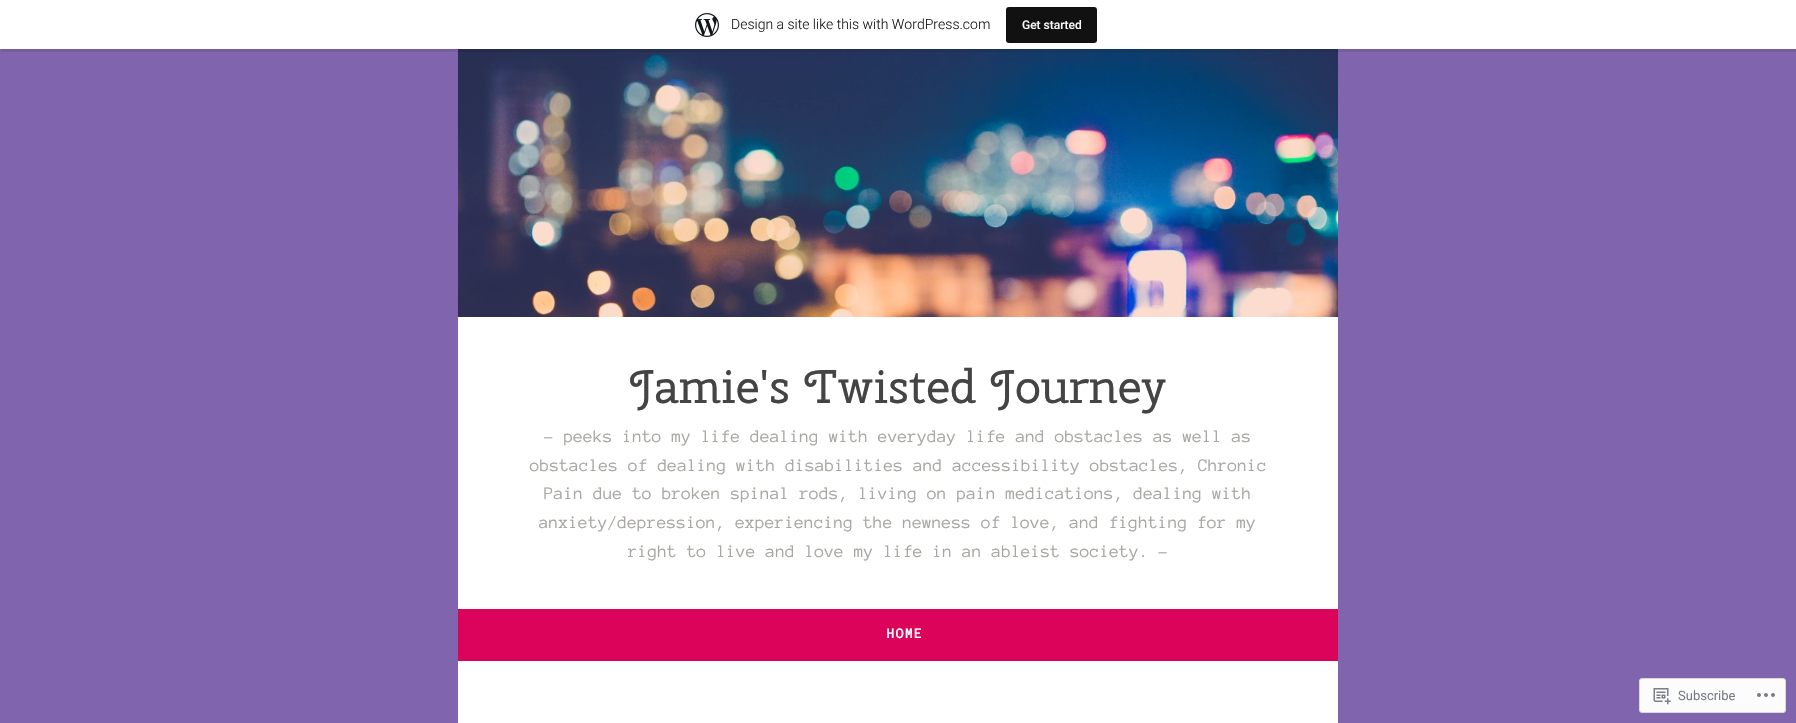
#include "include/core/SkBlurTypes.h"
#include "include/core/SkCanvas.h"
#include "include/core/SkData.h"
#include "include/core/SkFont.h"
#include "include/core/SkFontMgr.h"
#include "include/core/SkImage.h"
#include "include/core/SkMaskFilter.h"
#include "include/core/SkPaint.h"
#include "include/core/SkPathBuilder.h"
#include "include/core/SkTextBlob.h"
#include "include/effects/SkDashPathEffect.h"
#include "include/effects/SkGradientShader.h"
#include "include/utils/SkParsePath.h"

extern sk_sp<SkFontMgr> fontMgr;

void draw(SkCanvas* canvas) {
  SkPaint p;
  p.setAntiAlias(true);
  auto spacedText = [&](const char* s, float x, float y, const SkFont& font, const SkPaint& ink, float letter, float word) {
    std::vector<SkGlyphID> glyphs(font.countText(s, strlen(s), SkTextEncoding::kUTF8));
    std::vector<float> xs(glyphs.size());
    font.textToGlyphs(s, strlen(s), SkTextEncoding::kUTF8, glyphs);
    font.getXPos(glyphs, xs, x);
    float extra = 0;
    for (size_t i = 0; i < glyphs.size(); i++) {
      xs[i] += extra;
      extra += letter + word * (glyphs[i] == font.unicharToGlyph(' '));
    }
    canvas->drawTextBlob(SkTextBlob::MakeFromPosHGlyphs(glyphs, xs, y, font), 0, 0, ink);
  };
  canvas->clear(SkColorSetRGB(128, 101, 174));
  canvas->drawImageRect(SkImages::DeferredFromEncodedData(SkData::MakeFromFileName("images/2.png")), SkRect::MakeLTRB(458, 49, 1338, 317), SkSamplingOptions());
  p.setColor(SkColorSetARGB(20, 0, 0, 0));
  canvas->drawPath(SkPathBuilder().moveTo(1, 49).lineTo(1, 52).lineTo(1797, 52).lineTo(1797, 3).lineTo(1796, 3).lineTo(1796, 49).close().detach(), p);
  p.setColor(SK_ColorWHITE);
  canvas->drawRect(SkRect::MakeLTRB(0, 0, 1796, 49), p);
  canvas->drawImageRect(SkImages::DeferredFromEncodedData(SkData::MakeFromFileName("images/1.png")), SkRect::MakeLTRB(695, 13, 719, 37), SkSamplingOptions());
  p.setColor(SkColorSetRGB(17, 17, 17));
  canvas->drawRoundRect(SkRect::MakeLTRB(1006, 7, 1097, 43), 3, 3, p);
  p.setColor(SK_ColorWHITE);
  canvas->drawRect(SkRect::MakeLTRB(458, 317, 1338, 609), p);
  p.setColor(SkColorSetRGB(219, 4, 90));
  canvas->drawRect(SkRect::MakeLTRB(458, 609, 1338, 659), p);
  p.setColor(SkColorSetRGB(212, 4, 87));
  canvas->drawRect(SkRect::MakeLTRB(458, 659, 1338, 661), p);
  p.setColor(SK_ColorWHITE);
  canvas->drawRect(SkRect::MakeLTRB(458, 661, 1338, 723), p);
  p.setColor(SkColorSetRGB(252, 252, 253));
  canvas->drawRoundRect(SkRect::MakeLTRB(1639.5f, 678.5f, 1785.5f, 712.5f), 2.5f, 2.5f, p);
  p.setStyle(SkPaint::kStroke_Style);
  p.setStrokeWidth(1);
  p.setColor(SkColorSetRGB(218, 218, 221));
  canvas->drawRoundRect(SkRect::MakeLTRB(1639.5f, 678.5f, 1785.5f, 712.5f), 2.5f, 2.5f, p);
  canvas->drawImageRect(SkImages::DeferredFromEncodedData(SkData::MakeFromFileName("images/3.png")), SkRect::MakeLTRB(1653, 688, 1671, 705), SkSamplingOptions());
  canvas->drawImageRect(SkImages::DeferredFromEncodedData(SkData::MakeFromFileName("images/4.png")), SkRect::MakeLTRB(1757, 693, 1775, 697), SkSamplingOptions());
  SkFont font1(fontMgr->matchFamilyStyle("Roboto", SkFontStyle(300, SkFontStyle::kNormal_Width, SkFontStyle::kUpright_Slant)), 14);
  font1.setSubpixel(true);
  p.setStyle(SkPaint::kFill_Style);
  p.setColor(SkColorSetRGB(23, 23, 23));
  canvas->drawString("Design a site like this with WordPress.com", 731, 29, font1, p);
  SkFont font2(fontMgr->matchFamilyStyle("Roboto", SkFontStyle(500, SkFontStyle::kNormal_Width, SkFontStyle::kUpright_Slant)), 12);
  font2.setSubpixel(true);
  p.setColor(SkColorSetRGB(246, 247, 247));
  canvas->drawString("Get started", 1022, 29, font2, p);
  SkFont font3(fontMgr->matchFamilyStyle("Cherry Swash", SkFontStyle::Normal()), 47);
  font3.setSubpixel(true);
  p.setColor(SkColorSetRGB(68, 68, 68));
  canvas->drawString("Jamie's Twisted Journey", 630, 403, font3, p);
  SkFont font4(fontMgr->matchFamilyStyle("Anonymous Pro", SkFontStyle::Normal()), 18);
  font4.setSubpixel(true);
  p.setColor(SkColorSetRGB(168, 166, 161));
  canvas->drawString("- peeks into my life dealing with everyday life and obstacles as well as", 544, 442, font4, p);
  canvas->drawString("obstacles of dealing with disabilities and accessibility obstacles, Chronic", 530, 471, font4, p);
  canvas->drawString("Pain due to broken spinal rods, living on pain medications, dealing with", 544, 499, font4, p);
  canvas->drawString("anxiety/depression, experiencing the newness of love, and fighting for my", 539, 528, font4, p);
  canvas->drawString("right to live and love my life in an ableist society. -", 628, 557, font4, p);
  SkFont font5(fontMgr->matchFamilyStyle("Anonymous Pro", SkFontStyle::Bold()), 15);
  font5.setSubpixel(true);
  p.setColor(SK_ColorWHITE);
  spacedText("HOME", 887, 638, font5, p, 1, 0);
  SkFont font6(fontMgr->matchFamilyStyle("Roboto", SkFontStyle::Normal()), 13);
  font6.setSubpixel(true);
  p.setColor(SkColorSetRGB(120, 124, 131));
  canvas->drawString("Subscribe", 1678, 700, font6, p);
}
